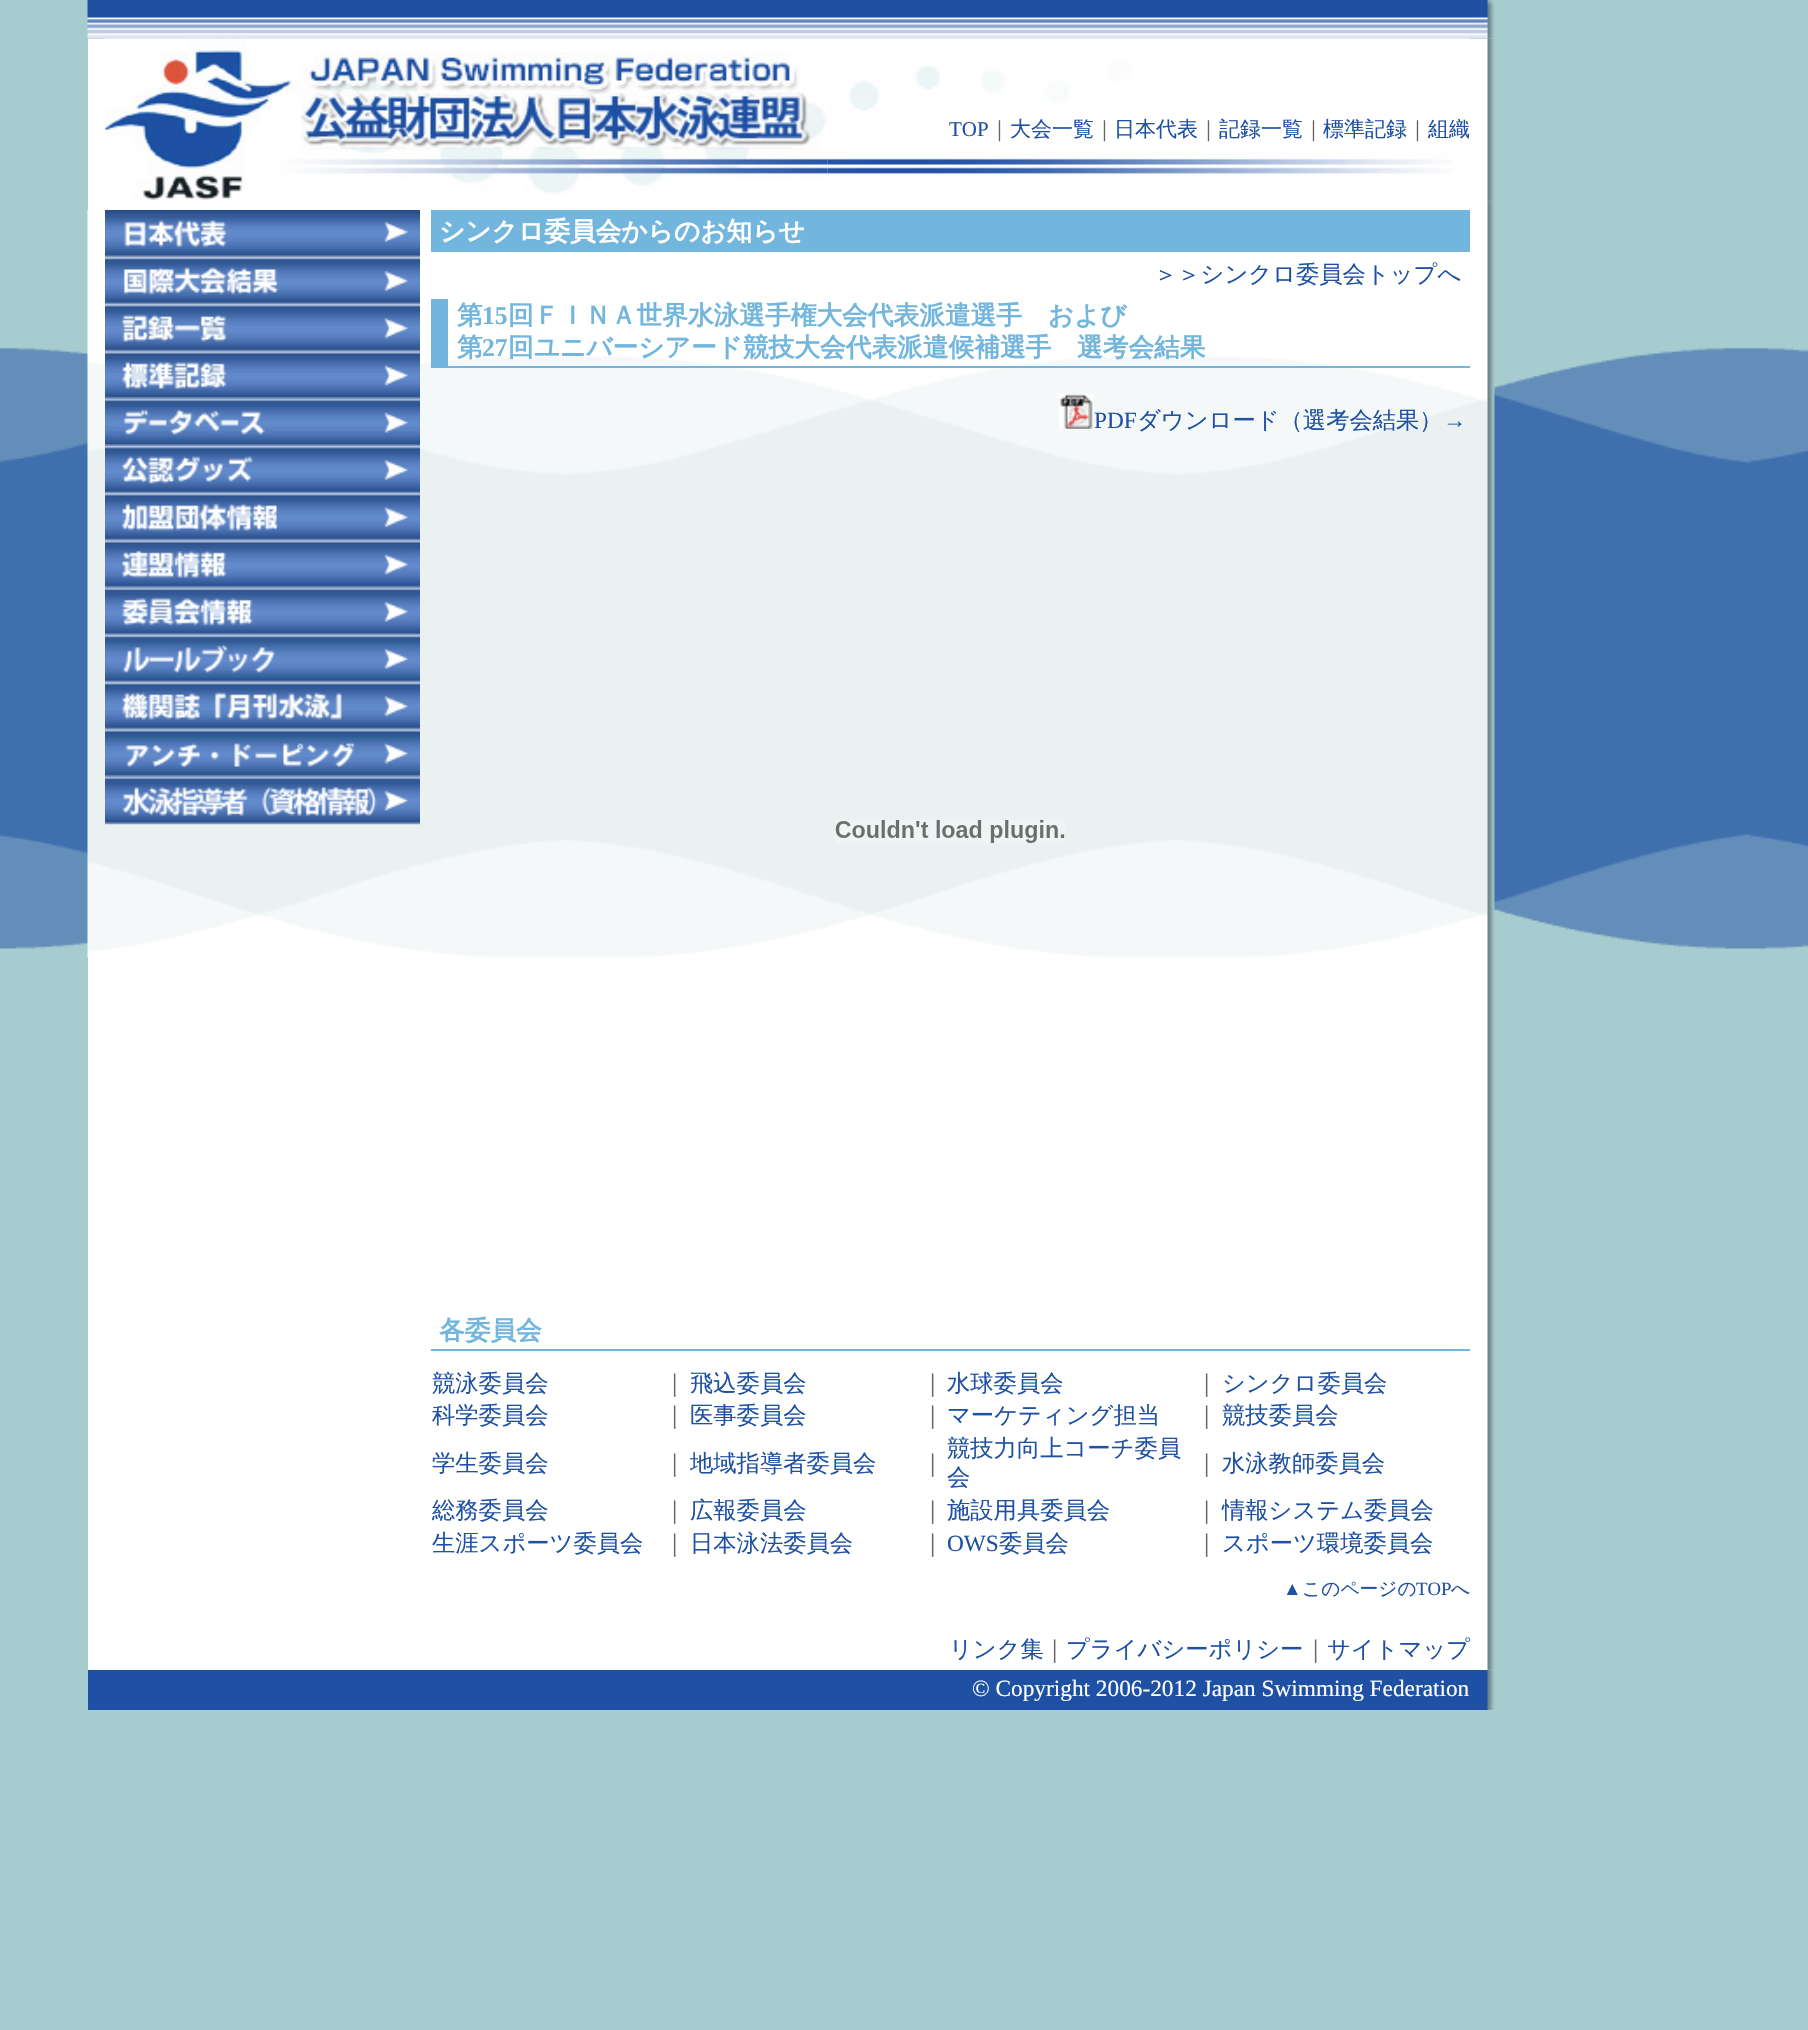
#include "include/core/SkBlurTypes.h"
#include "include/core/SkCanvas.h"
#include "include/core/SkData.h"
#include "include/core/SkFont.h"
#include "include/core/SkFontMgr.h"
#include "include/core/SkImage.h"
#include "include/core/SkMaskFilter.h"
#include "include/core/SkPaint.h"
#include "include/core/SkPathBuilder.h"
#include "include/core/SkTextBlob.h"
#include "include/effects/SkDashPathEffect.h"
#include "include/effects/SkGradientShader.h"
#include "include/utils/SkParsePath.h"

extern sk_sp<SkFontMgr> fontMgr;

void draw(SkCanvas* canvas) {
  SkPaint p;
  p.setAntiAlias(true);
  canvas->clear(SkColorSetRGB(166, 204, 207));
  canvas->drawImageRect(SkImages::DeferredFromEncodedData(SkData::MakeFromFileName("images/1.png")), SkRect::MakeLTRB(0, 347, 1808, 949), SkSamplingOptions());
  p.setColor(SK_ColorWHITE);
  canvas->drawRect(SkRect::MakeLTRB(88, 39, 1488, 201), p);
  canvas->drawImageRect(SkImages::DeferredFromEncodedData(SkData::MakeFromFileName("images/6.png")), SkRect::MakeLTRB(1487, 38, 1495, 202), SkSamplingOptions());
  canvas->drawImageRect(SkImages::DeferredFromEncodedData(SkData::MakeFromFileName("images/2.png")), SkRect::MakeLTRB(87, 0, 1495, 39), SkSamplingOptions());
  canvas->drawImageRect(SkImages::DeferredFromEncodedData(SkData::MakeFromFileName("images/3.png")), SkRect::MakeLTRB(105, 38, 828, 201), SkSamplingOptions());
  canvas->drawImageRect(SkImages::DeferredFromEncodedData(SkData::MakeFromFileName("images/4.png")), SkRect::MakeLTRB(827, 38, 1470, 111), SkSamplingOptions());
  canvas->drawImageRect(SkImages::DeferredFromEncodedData(SkData::MakeFromFileName("images/5.png")), SkRect::MakeLTRB(827, 151, 1452, 175), SkSamplingOptions());
  canvas->drawRect(SkRect::MakeLTRB(88, 201, 1488, 1670), p);
  canvas->drawImageRect(SkImages::DeferredFromEncodedData(SkData::MakeFromFileName("images/7.png")), SkRect::MakeLTRB(1487, 201, 1495, 210), SkSamplingOptions());
  canvas->drawImageRect(SkImages::DeferredFromEncodedData(SkData::MakeFromFileName("images/8.png")), SkRect::MakeLTRB(87, 210, 1488, 958), SkSamplingOptions());
  canvas->drawImageRect(SkImages::DeferredFromEncodedData(SkData::MakeFromFileName("images/9.png")), SkRect::MakeLTRB(105, 210, 420, 258), SkSamplingOptions());
  canvas->drawImageRect(SkImages::DeferredFromEncodedData(SkData::MakeFromFileName("images/10.png")), SkRect::MakeLTRB(105, 257, 420, 305), SkSamplingOptions());
  canvas->drawImageRect(SkImages::DeferredFromEncodedData(SkData::MakeFromFileName("images/11.png")), SkRect::MakeLTRB(105, 304, 420, 352), SkSamplingOptions());
  canvas->drawImageRect(SkImages::DeferredFromEncodedData(SkData::MakeFromFileName("images/12.png")), SkRect::MakeLTRB(105, 352, 420, 399), SkSamplingOptions());
  canvas->drawImageRect(SkImages::DeferredFromEncodedData(SkData::MakeFromFileName("images/13.png")), SkRect::MakeLTRB(105, 399, 420, 447), SkSamplingOptions());
  canvas->drawImageRect(SkImages::DeferredFromEncodedData(SkData::MakeFromFileName("images/14.png")), SkRect::MakeLTRB(105, 446, 420, 494), SkSamplingOptions());
  canvas->drawImageRect(SkImages::DeferredFromEncodedData(SkData::MakeFromFileName("images/15.png")), SkRect::MakeLTRB(105, 493, 420, 541), SkSamplingOptions());
  canvas->drawImageRect(SkImages::DeferredFromEncodedData(SkData::MakeFromFileName("images/16.png")), SkRect::MakeLTRB(105, 541, 420, 588), SkSamplingOptions());
  canvas->drawImageRect(SkImages::DeferredFromEncodedData(SkData::MakeFromFileName("images/17.png")), SkRect::MakeLTRB(105, 588, 420, 636), SkSamplingOptions());
  canvas->drawImageRect(SkImages::DeferredFromEncodedData(SkData::MakeFromFileName("images/18.png")), SkRect::MakeLTRB(105, 635, 420, 683), SkSamplingOptions());
  canvas->drawImageRect(SkImages::DeferredFromEncodedData(SkData::MakeFromFileName("images/19.png")), SkRect::MakeLTRB(105, 682, 420, 730), SkSamplingOptions());
  canvas->drawImageRect(SkImages::DeferredFromEncodedData(SkData::MakeFromFileName("images/20.png")), SkRect::MakeLTRB(105, 730, 420, 777), SkSamplingOptions());
  canvas->drawImageRect(SkImages::DeferredFromEncodedData(SkData::MakeFromFileName("images/21.png")), SkRect::MakeLTRB(105, 777, 420, 825), SkSamplingOptions());
  p.setColor(SkColorSetRGB(115, 182, 221));
  canvas->drawRect(SkRect::MakeLTRB(431, 210, 1470, 252), p);
  canvas->drawRect(SkRect::MakeLTRB(431, 299, 448, 368), p);
  canvas->drawRect(SkRect::MakeLTRB(448, 366, 1470, 368), p);
  canvas->drawImageRect(SkImages::DeferredFromEncodedData(SkData::MakeFromFileName("images/22.png")), SkRect::MakeLTRB(1059, 394, 1094, 429), SkSamplingOptions());
  canvas->drawImageRect(SkImages::DeferredFromEncodedData(SkData::MakeFromFileName("images/23.png")), SkRect::MakeLTRB(835, 820, 1065, 843), SkSamplingOptions());
  canvas->drawRect(SkRect::MakeLTRB(431, 1349, 1470, 1351), p);
  canvas->drawImageRect(SkImages::DeferredFromEncodedData(SkData::MakeFromFileName("images/24.png")), SkRect::MakeLTRB(1487, 210, 1495, 1631), SkSamplingOptions());
  canvas->drawImageRect(SkImages::DeferredFromEncodedData(SkData::MakeFromFileName("images/25.png")), SkRect::MakeLTRB(1487, 1631, 1495, 1670), SkSamplingOptions());
  p.setColor(SkColorSetRGB(30, 81, 163));
  canvas->drawRect(SkRect::MakeLTRB(88, 1670, 1488, 1710), p);
  canvas->drawImageRect(SkImages::DeferredFromEncodedData(SkData::MakeFromFileName("images/26.png")), SkRect::MakeLTRB(1487, 1669, 1495, 1710), SkSamplingOptions());
  SkFont font1(fontMgr->matchFamilyStyle("Liberation Serif", SkFontStyle::Normal()), 21);
  font1.setSubpixel(true);
  p.setColor(SkColorSetRGB(30, 80, 163));
  canvas->drawString("TOP", 949, 136, font1, p);
  SkFont font2(fontMgr->matchFamilyStyle("WenQuanYi Zen Hei", SkFontStyle(500, SkFontStyle::kNormal_Width, SkFontStyle::kUpright_Slant)), 21);
  font2.setSubpixel(true);
  p.setColor(SkColorSetRGB(102, 102, 102));
  canvas->drawString("｜", 989, 136, font2, p);
  p.setColor(SkColorSetRGB(30, 80, 163));
  canvas->drawString("大会一覧", 1010, 136, font2, p);
  p.setColor(SkColorSetRGB(102, 102, 102));
  canvas->drawString("｜", 1094, 136, font2, p);
  p.setColor(SkColorSetRGB(30, 80, 163));
  canvas->drawString("日本代表", 1114, 136, font2, p);
  p.setColor(SkColorSetRGB(102, 102, 102));
  canvas->drawString("｜", 1198, 136, font2, p);
  p.setColor(SkColorSetRGB(30, 80, 163));
  canvas->drawString("記録一覧", 1219, 136, font2, p);
  p.setColor(SkColorSetRGB(102, 102, 102));
  canvas->drawString("｜", 1303, 136, font2, p);
  p.setColor(SkColorSetRGB(30, 80, 163));
  canvas->drawString("標準記録", 1323, 136, font2, p);
  p.setColor(SkColorSetRGB(102, 102, 102));
  canvas->drawString("｜", 1407, 136, font2, p);
  p.setColor(SkColorSetRGB(30, 80, 163));
  canvas->drawString("組織", 1428, 136, font2, p);
  SkFont font3(fontMgr->matchFamilyStyle("WenQuanYi Zen Hei", SkFontStyle::Bold()), 25.7f);
  font3.setSubpixel(true);
  p.setColor(SK_ColorWHITE);
  canvas->drawString("シンクロ委員会からのお知らせ", 439, 240, font3, p);
  SkFont font4(fontMgr->matchFamilyStyle("WenQuanYi Zen Hei", SkFontStyle(500, SkFontStyle::kNormal_Width, SkFontStyle::kUpright_Slant)), 23.3f);
  font4.setSubpixel(true);
  p.setColor(SkColorSetRGB(30, 80, 163));
  canvas->drawString("＞＞シンクロ委員会トップへ", 1154, 282, font4, p);
  p.setColor(SkColorSetRGB(115, 182, 221));
  canvas->drawString("第", 457, 324, font3, p);
  SkFont font5(fontMgr->matchFamilyStyle("Liberation Serif", SkFontStyle::Bold()), 25.7f);
  font5.setSubpixel(true);
  canvas->drawString("15", 482, 324, font5, p);
  canvas->drawString("回ＦＩＮＡ世界水泳選手権大会代表派遣選手　および", 508, 324, font3, p);
  canvas->drawString("第", 457, 356, font3, p);
  canvas->drawString("27", 482, 356, font5, p);
  canvas->drawString("回ユニバーシアード競技大会代表派遣候補選手　選考会結果", 508, 356, font3, p);
  SkFont font6(fontMgr->matchFamilyStyle("Liberation Serif", SkFontStyle::Normal()), 23.3f);
  font6.setSubpixel(true);
  p.setColor(SkColorSetRGB(30, 80, 163));
  canvas->drawString("PDF", 1094, 428, font6, p);
  canvas->drawString("ダウンロード（選考会結果）", 1137, 428, font4, p);
  canvas->drawString("→", 1443, 428, font6, p);
  p.setColor(SkColorSetRGB(115, 182, 221));
  canvas->drawString("各委員会", 439, 1339, font3, p);
  p.setColor(SkColorSetRGB(30, 80, 163));
  canvas->drawString("競泳委員会", 432, 1391, font4, p);
  p.setColor(SkColorSetRGB(102, 102, 102));
  canvas->drawString("｜", 663, 1391, font4, p);
  p.setColor(SkColorSetRGB(30, 80, 163));
  canvas->drawString("飛込委員会", 690, 1391, font4, p);
  p.setColor(SkColorSetRGB(102, 102, 102));
  canvas->drawString("｜", 921, 1391, font4, p);
  p.setColor(SkColorSetRGB(30, 80, 163));
  canvas->drawString("水球委員会", 947, 1391, font4, p);
  p.setColor(SkColorSetRGB(102, 102, 102));
  canvas->drawString("｜", 1195, 1391, font4, p);
  p.setColor(SkColorSetRGB(30, 80, 163));
  canvas->drawString("シンクロ委員会", 1222, 1391, font4, p);
  canvas->drawString("科学委員会", 432, 1423, font4, p);
  p.setColor(SkColorSetRGB(102, 102, 102));
  canvas->drawString("｜", 663, 1423, font4, p);
  p.setColor(SkColorSetRGB(30, 80, 163));
  canvas->drawString("医事委員会", 690, 1423, font4, p);
  p.setColor(SkColorSetRGB(102, 102, 102));
  canvas->drawString("｜", 921, 1423, font4, p);
  p.setColor(SkColorSetRGB(30, 80, 163));
  canvas->drawString("マーケティング担当", 947, 1423, font4, p);
  p.setColor(SkColorSetRGB(102, 102, 102));
  canvas->drawString("｜", 1195, 1423, font4, p);
  p.setColor(SkColorSetRGB(30, 80, 163));
  canvas->drawString("競技委員会", 1222, 1423, font4, p);
  canvas->drawString("学生委員会", 432, 1471, font4, p);
  p.setColor(SkColorSetRGB(102, 102, 102));
  canvas->drawString("｜", 663, 1471, font4, p);
  p.setColor(SkColorSetRGB(30, 80, 163));
  canvas->drawString("地域指導者委員会", 690, 1471, font4, p);
  p.setColor(SkColorSetRGB(102, 102, 102));
  canvas->drawString("｜", 921, 1471, font4, p);
  p.setColor(SkColorSetRGB(30, 80, 163));
  canvas->drawString("競技力向上コーチ委員", 947, 1456, font4, p);
  canvas->drawString("会", 947, 1485, font4, p);
  p.setColor(SkColorSetRGB(102, 102, 102));
  canvas->drawString("｜", 1195, 1471, font4, p);
  p.setColor(SkColorSetRGB(30, 80, 163));
  canvas->drawString("水泳教師委員会", 1222, 1471, font4, p);
  canvas->drawString("総務委員会", 432, 1518, font4, p);
  p.setColor(SkColorSetRGB(102, 102, 102));
  canvas->drawString("｜", 663, 1518, font4, p);
  p.setColor(SkColorSetRGB(30, 80, 163));
  canvas->drawString("広報委員会", 690, 1518, font4, p);
  p.setColor(SkColorSetRGB(102, 102, 102));
  canvas->drawString("｜", 921, 1518, font4, p);
  p.setColor(SkColorSetRGB(30, 80, 163));
  canvas->drawString("施設用具委員会", 947, 1518, font4, p);
  p.setColor(SkColorSetRGB(102, 102, 102));
  canvas->drawString("｜", 1195, 1518, font4, p);
  p.setColor(SkColorSetRGB(30, 80, 163));
  canvas->drawString("情報システム委員会", 1222, 1518, font4, p);
  canvas->drawString("生涯スポーツ委員会", 432, 1551, font4, p);
  p.setColor(SkColorSetRGB(102, 102, 102));
  canvas->drawString("｜", 663, 1551, font4, p);
  p.setColor(SkColorSetRGB(30, 80, 163));
  canvas->drawString("日本泳法委員会", 690, 1551, font4, p);
  p.setColor(SkColorSetRGB(102, 102, 102));
  canvas->drawString("｜", 921, 1551, font4, p);
  p.setColor(SkColorSetRGB(30, 80, 163));
  canvas->drawString("OWS", 947, 1551, font6, p);
  canvas->drawString("委員会", 999, 1551, font4, p);
  p.setColor(SkColorSetRGB(102, 102, 102));
  canvas->drawString("｜", 1195, 1551, font4, p);
  p.setColor(SkColorSetRGB(30, 80, 163));
  canvas->drawString("スポーツ環境委員会", 1222, 1551, font4, p);
  SkFont font7(fontMgr->matchFamilyStyle("Liberation Serif", SkFontStyle::Normal()), 18.75f);
  font7.setSubpixel(true);
  canvas->drawString("▲", 1283, 1595, font7, p);
  SkFont font8(fontMgr->matchFamilyStyle("WenQuanYi Zen Hei", SkFontStyle(500, SkFontStyle::kNormal_Width, SkFontStyle::kUpright_Slant)), 18.75f);
  font8.setSubpixel(true);
  canvas->drawString("このページの", 1302, 1595, font8, p);
  canvas->drawString("TOP", 1416, 1595, font7, p);
  canvas->drawString("へ", 1451, 1595, font8, p);
  canvas->drawString("リンク集", 949, 1657, font4, p);
  p.setColor(SkColorSetRGB(102, 102, 102));
  canvas->drawString("｜", 1043, 1657, font4, p);
  p.setColor(SkColorSetRGB(30, 80, 163));
  canvas->drawString("プライバシーポリシー", 1066, 1657, font4, p);
  p.setColor(SkColorSetRGB(102, 102, 102));
  canvas->drawString("｜", 1304, 1657, font4, p);
  p.setColor(SkColorSetRGB(30, 80, 163));
  canvas->drawString("サイトマップ", 1327, 1657, font4, p);
  p.setColor(SK_ColorWHITE);
  canvas->drawString("© Copyright 2006-2012 Japan Swimming Federation", 972, 1696, font6, p);
}
